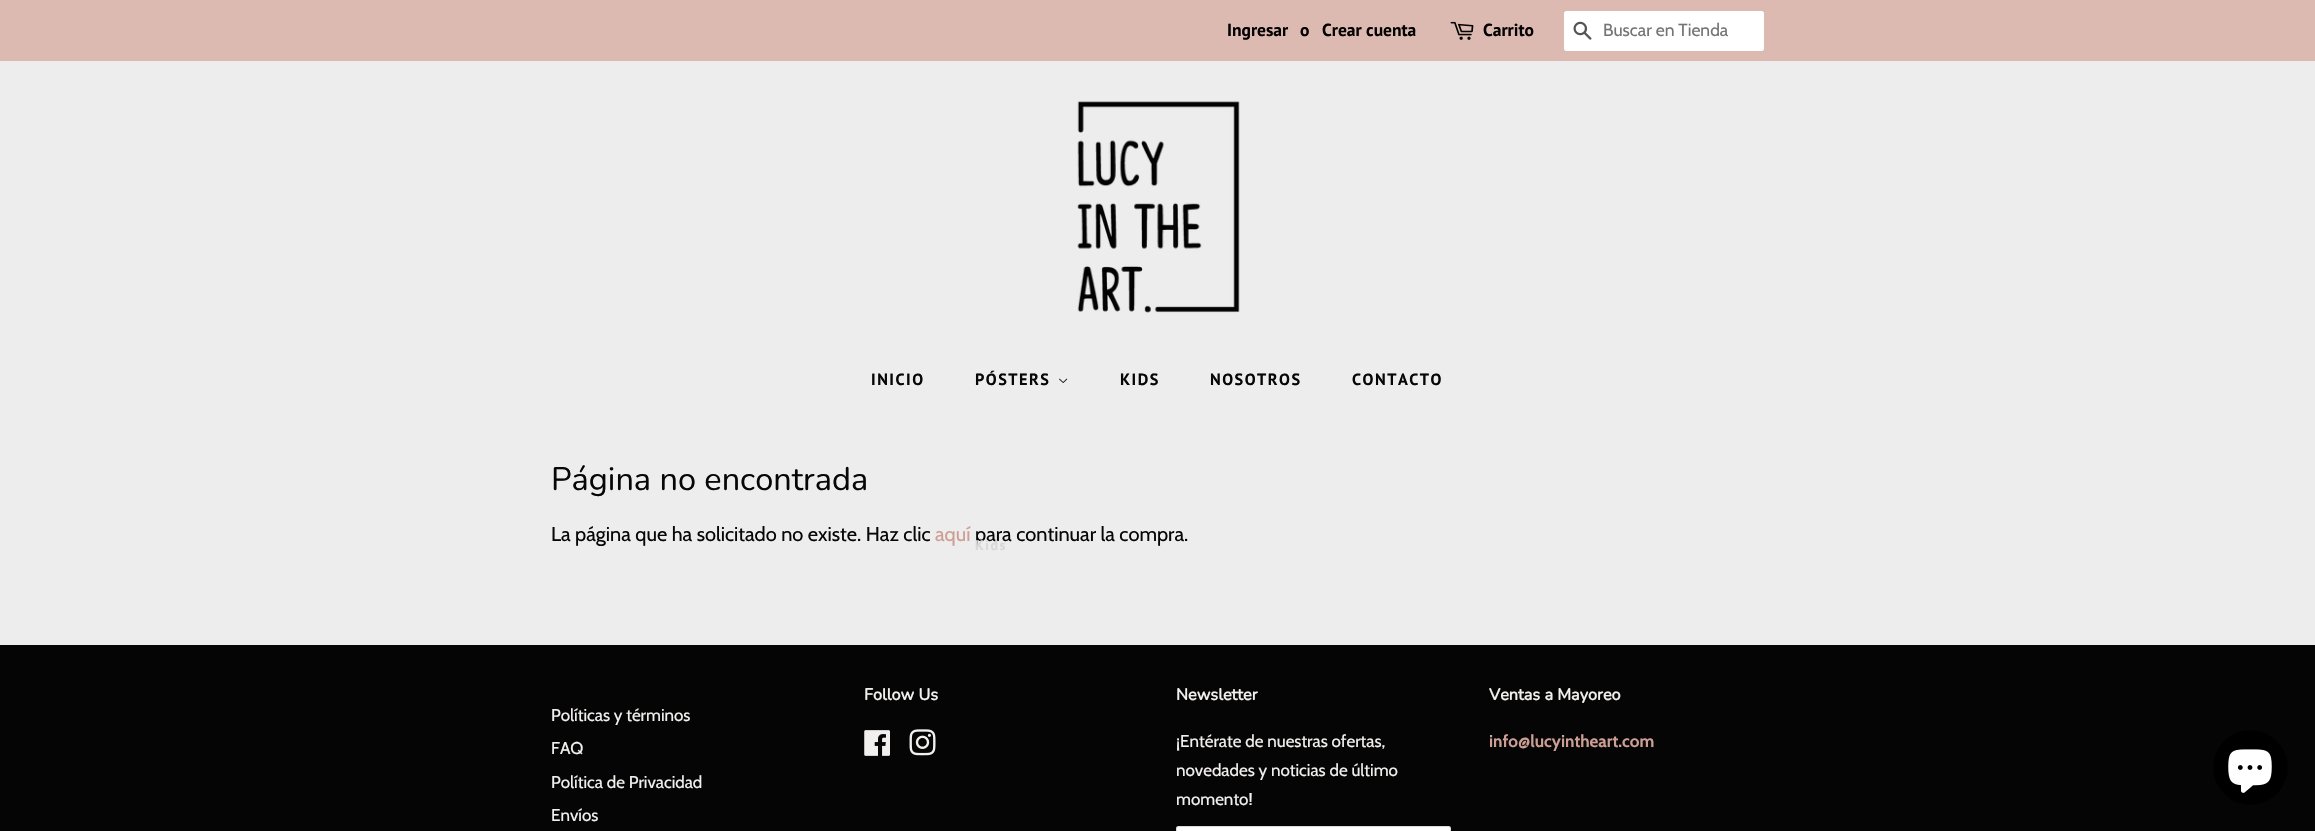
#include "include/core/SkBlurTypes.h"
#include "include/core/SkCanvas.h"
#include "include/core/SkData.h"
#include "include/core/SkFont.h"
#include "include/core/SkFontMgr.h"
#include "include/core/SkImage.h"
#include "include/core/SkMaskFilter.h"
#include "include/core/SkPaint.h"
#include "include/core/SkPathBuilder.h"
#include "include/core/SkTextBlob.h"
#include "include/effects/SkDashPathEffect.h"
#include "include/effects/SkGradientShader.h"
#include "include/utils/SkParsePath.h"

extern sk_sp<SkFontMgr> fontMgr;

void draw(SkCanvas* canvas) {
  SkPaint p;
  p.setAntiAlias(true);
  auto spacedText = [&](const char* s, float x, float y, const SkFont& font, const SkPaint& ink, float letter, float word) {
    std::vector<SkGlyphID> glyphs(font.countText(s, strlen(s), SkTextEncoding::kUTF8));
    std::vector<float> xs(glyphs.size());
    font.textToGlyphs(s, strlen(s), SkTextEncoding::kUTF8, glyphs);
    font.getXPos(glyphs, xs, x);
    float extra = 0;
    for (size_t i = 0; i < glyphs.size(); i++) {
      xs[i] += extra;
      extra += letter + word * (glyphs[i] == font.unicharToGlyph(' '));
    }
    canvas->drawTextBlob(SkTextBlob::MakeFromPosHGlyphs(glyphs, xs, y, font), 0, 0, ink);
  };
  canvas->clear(SkColorSetRGB(238, 237, 237));
  p.setColor(SkColorSetRGB(220, 186, 178));
  canvas->drawRect(SkRect::MakeLTRB(0, 0, 2315, 61), p);
  canvas->drawImageRect(SkImages::DeferredFromEncodedData(SkData::MakeFromFileName("images/1.png")), SkRect::MakeLTRB(1450, 21, 1474, 40), SkSamplingOptions());
  p.setColor(SK_ColorWHITE);
  canvas->drawRoundRect(SkRect::MakeLTRB(1564, 11, 1764, 51), 2.5f, 2.5f, p);
  canvas->drawImageRect(SkImages::DeferredFromEncodedData(SkData::MakeFromFileName("images/2.png")), SkRect::MakeLTRB(1573, 21, 1592, 40), SkSamplingOptions());
  canvas->drawImageRect(SkImages::DeferredFromEncodedData(SkData::MakeFromFileName("images/3.png")), SkRect::MakeLTRB(1077, 101, 1240, 313), SkSamplingOptions());
  canvas->drawImageRect(SkImages::DeferredFromEncodedData(SkData::MakeFromFileName("images/4.png")), SkRect::MakeLTRB(1059, 378, 1068, 383), SkSamplingOptions());
  p.setColor(SkColorSetRGB(5, 5, 5));
  canvas->drawRect(SkRect::MakeLTRB(0, 645, 2315, 831), p);
  canvas->drawImageRect(SkImages::DeferredFromEncodedData(SkData::MakeFromFileName("images/5.png")), SkRect::MakeLTRB(864, 730, 890, 756), SkSamplingOptions());
  canvas->drawImageRect(SkImages::DeferredFromEncodedData(SkData::MakeFromFileName("images/6.png")), SkRect::MakeLTRB(909, 729, 936, 756), SkSamplingOptions());
  p.setColor(SK_ColorWHITE);
  canvas->drawRoundRect(SkRect::MakeLTRB(1176, 826, 1451, 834), 2.5f, 2.5f, p);
  p.setStyle(SkPaint::kStroke_Style);
  p.setStrokeWidth(1);
  p.setColor(SkColorSetARGB(38, 7, 7, 7));
  canvas->drawRoundRect(SkRect::MakeLTRB(1176.5f, 826.5f, 1450.5f, 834.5f), 2, 2, p);
  p.setStyle(SkPaint::kFill_Style);
  p.setColor(SK_ColorBLACK);
  canvas->drawCircle(2250.5f, 767.5f, 37.5f, p);
  canvas->drawImageRect(SkImages::DeferredFromEncodedData(SkData::MakeFromFileName("images/7.png")), SkRect::MakeLTRB(2228, 749, 2272, 793), SkSamplingOptions());
  SkFont font1(fontMgr->matchFamilyStyle("Nunito", SkFontStyle::Normal()), 32.5f);
  font1.setSubpixel(true);
  p.setColor(SkColorSetRGB(7, 7, 7));
  canvas->drawString("Página no encontrada", 551, 490, font1, p);
  SkFont font2(fontMgr->matchFamilyStyle("Cabin", SkFontStyle::Normal()), 20);
  font2.setSubpixel(true);
  canvas->drawString("La página que ha solicitado no existe. Haz clic", 551, 541, font2, p);
  p.setColor(SkColorSetRGB(205, 159, 148));
  canvas->drawString("aquí", 935, 541, font2, p);
  p.setColor(SkColorSetRGB(7, 7, 7));
  canvas->drawString("para continuar la compra.", 975, 541, font2, p);
  SkFont font3(fontMgr->matchFamilyStyle("PT Sans", SkFontStyle::Bold()), 17.5f);
  font3.setSubpixel(true);
  p.setColor(SkColorSetRGB(3, 2, 0));
  canvas->drawString("Ingresar", 1227, 36, font3, p);
  canvas->drawString("o", 1300, 36, font3, p);
  canvas->drawString("Crear cuenta", 1322, 36, font3, p);
  canvas->drawString("Carrito", 1483, 36, font3, p);
  SkFont font4(fontMgr->matchFamilyStyle("Cabin", SkFontStyle::Normal()), 17.5f);
  font4.setSubpixel(true);
  p.setColor(SkColorSetRGB(117, 117, 117));
  canvas->drawString("Buscar en Tienda", 1603, 36, font4, p);
  SkFont font5(fontMgr->matchFamilyStyle("PT Sans", SkFontStyle::Bold()), 16.25f);
  font5.setSubpixel(true);
  p.setColor(SkColorSetRGB(7, 7, 7));
  spacedText("INICIO", 871, 385, font5, p, 1.5f, 0);
  spacedText("PÓSTERS", 975, 385, font5, p, 1.5f, 0);
  SkFont font6(fontMgr->matchFamilyStyle("PT Sans", SkFontStyle::Bold()), 14);
  font6.setSubpixel(true);
  p.setColor(SkColorSetRGB(217, 216, 216));
  spacedText("Kids", 975, 550, font6, p, 1.5f, 0);
  p.setColor(SkColorSetRGB(7, 7, 7));
  spacedText("KIDS", 1120, 385, font5, p, 1.5f, 0);
  spacedText("NOSOTROS", 1210, 385, font5, p, 1.5f, 0);
  spacedText("CONTACTO", 1352, 385, font5, p, 1.5f, 0);
  SkFont font7(fontMgr->matchFamilyStyle("Cabin", SkFontStyle::Normal()), 17);
  font7.setSubpixel(true);
  p.setColor(SkColorSetRGB(242, 240, 238));
  canvas->drawString("Políticas y términos", 551, 721, font7, p);
  canvas->drawString("FAQ", 551, 754, font7, p);
  canvas->drawString("Política de Privacidad", 551, 788, font7, p);
  canvas->drawString("Envíos", 551, 821, font7, p);
  SkFont font8(fontMgr->matchFamilyStyle("Nunito", SkFontStyle::Bold()), 16.25f);
  font8.setSubpixel(true);
  canvas->drawString("Follow Us", 864, 700, font8, p);
  canvas->drawString("Newsletter", 1176, 700, font8, p);
  canvas->drawString("¡Entérate de nuestras ofertas,", 1176, 747, font7, p);
  canvas->drawString("novedades y noticias de último", 1176, 776, font7, p);
  canvas->drawString("momento!", 1176, 805, font7, p);
  canvas->drawString("Ventas a Mayoreo", 1489, 700, font8, p);
  SkFont font9(fontMgr->matchFamilyStyle("Cabin", SkFontStyle::Bold()), 17);
  font9.setSubpixel(true);
  p.setColor(SkColorSetRGB(205, 159, 148));
  canvas->drawString("info@lucyintheart.com", 1489, 747, font9, p);
}
